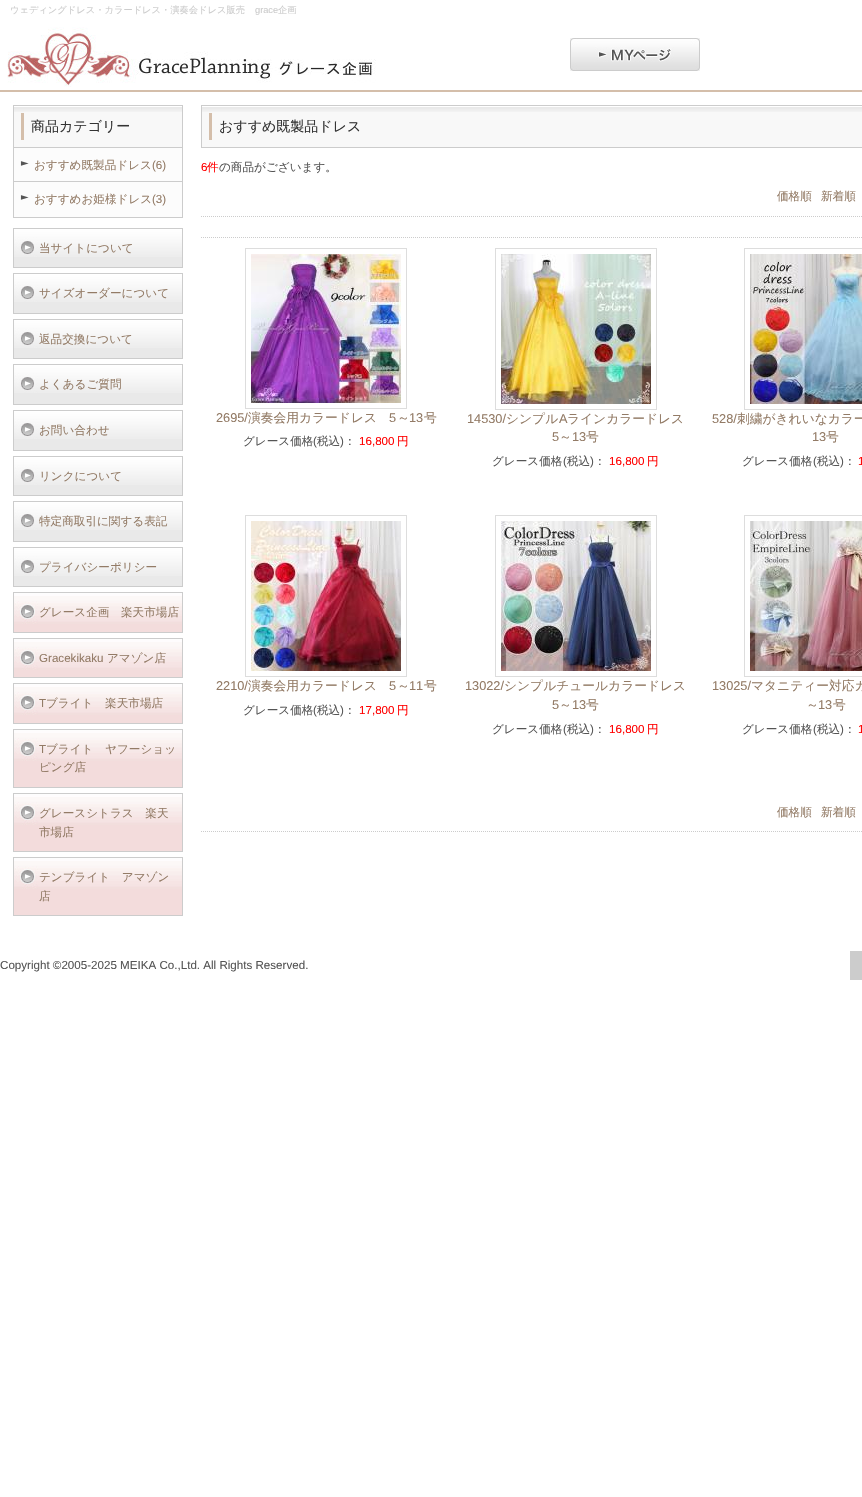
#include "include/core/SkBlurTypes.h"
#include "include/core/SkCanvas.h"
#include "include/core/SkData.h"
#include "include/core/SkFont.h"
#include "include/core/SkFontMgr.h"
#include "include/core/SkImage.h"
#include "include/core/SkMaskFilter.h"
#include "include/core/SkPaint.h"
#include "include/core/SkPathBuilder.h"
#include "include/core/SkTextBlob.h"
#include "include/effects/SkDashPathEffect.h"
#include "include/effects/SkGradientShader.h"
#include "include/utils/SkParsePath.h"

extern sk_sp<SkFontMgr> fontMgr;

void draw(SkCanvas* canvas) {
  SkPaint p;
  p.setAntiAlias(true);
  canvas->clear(SK_ColorWHITE);
  canvas->drawImageRect(SkImages::DeferredFromEncodedData(SkData::MakeFromFileName("images/1.png")), SkRect::MakeLTRB(7, 27, 376, 87), SkSamplingOptions());
  canvas->drawImageRect(SkImages::DeferredFromEncodedData(SkData::MakeFromFileName("images/2.png")), SkRect::MakeLTRB(570, 38, 700, 71), SkSamplingOptions());
  p.setColor(SkColorSetRGB(212, 190, 170));
  canvas->drawRect(SkRect::MakeLTRB(0, 90, 862, 92), p);
  p.setColor(SkColorSetRGB(252, 252, 252));
  canvas->drawRect(SkRect::MakeLTRB(14, 148, 182, 217), p);
  p.setStyle(SkPaint::kStroke_Style);
  p.setStrokeWidth(1);
  p.setColor(SkColorSetRGB(204, 204, 204));
  canvas->drawRect(SkRect::MakeLTRB(13.5f, 105.5f, 182.5f, 217.5f), p);
  p.setStyle(SkPaint::kFill_Style);
  p.setColor(SkColorSetRGB(248, 248, 248));
  canvas->drawRect(SkRect::MakeLTRB(14, 112, 182, 147), p);
  canvas->drawImageRect(SkImages::DeferredFromEncodedData(SkData::MakeFromFileName("images/3.png")), SkRect::MakeLTRB(14, 106, 182, 112), SkSamplingOptions());
  p.setColor(SkColorSetRGB(204, 204, 204));
  canvas->drawRect(SkRect::MakeLTRB(14, 147, 182, 148), p);
  p.setColor(SkColorSetRGB(212, 190, 170));
  canvas->drawRect(SkRect::MakeLTRB(21, 113, 24, 140), p);
  canvas->drawImageRect(SkImages::DeferredFromEncodedData(SkData::MakeFromFileName("images/4.png")), SkRect::MakeLTRB(20, 161, 29, 166), SkSamplingOptions());
  canvas->drawImageRect(SkImages::DeferredFromEncodedData(SkData::MakeFromFileName("images/4.png")), SkRect::MakeLTRB(20, 195, 29, 200), SkSamplingOptions());
  p.setColor(SkColorSetRGB(204, 204, 204));
  canvas->drawRect(SkRect::MakeLTRB(14, 181, 182, 182), p);
  p.setColor(SkColorSetRGB(233, 233, 233));
  canvas->drawRect(SkRect::MakeLTRB(14, 257, 182, 267), p);
  canvas->drawImageRect(SkImages::DeferredFromEncodedData(SkData::MakeFromFileName("images/5.png")), SkRect::MakeLTRB(14, 229, 182, 257), SkSamplingOptions());
  p.setStyle(SkPaint::kStroke_Style);
  p.setColor(SkColorSetRGB(204, 204, 204));
  canvas->drawRect(SkRect::MakeLTRB(13.5f, 228.5f, 182.5f, 267.5f), p);
  p.setStyle(SkPaint::kFill_Style);
  p.setColor(SkColorSetRGB(233, 233, 233));
  canvas->drawRect(SkRect::MakeLTRB(14, 302, 182, 313), p);
  canvas->drawImageRect(SkImages::DeferredFromEncodedData(SkData::MakeFromFileName("images/5.png")), SkRect::MakeLTRB(14, 274, 182, 302), SkSamplingOptions());
  p.setStyle(SkPaint::kStroke_Style);
  p.setColor(SkColorSetRGB(204, 204, 204));
  canvas->drawRect(SkRect::MakeLTRB(13.5f, 273.5f, 182.5f, 313.5f), p);
  p.setStyle(SkPaint::kFill_Style);
  p.setColor(SkColorSetRGB(233, 233, 233));
  canvas->drawRect(SkRect::MakeLTRB(14, 348, 182, 358), p);
  canvas->drawImageRect(SkImages::DeferredFromEncodedData(SkData::MakeFromFileName("images/5.png")), SkRect::MakeLTRB(14, 320, 182, 348), SkSamplingOptions());
  p.setStyle(SkPaint::kStroke_Style);
  p.setColor(SkColorSetRGB(204, 204, 204));
  canvas->drawRect(SkRect::MakeLTRB(13.5f, 319.5f, 182.5f, 358.5f), p);
  p.setStyle(SkPaint::kFill_Style);
  p.setColor(SkColorSetRGB(233, 233, 233));
  canvas->drawRect(SkRect::MakeLTRB(14, 393, 182, 404), p);
  canvas->drawImageRect(SkImages::DeferredFromEncodedData(SkData::MakeFromFileName("images/5.png")), SkRect::MakeLTRB(14, 365, 182, 393), SkSamplingOptions());
  p.setStyle(SkPaint::kStroke_Style);
  p.setColor(SkColorSetRGB(204, 204, 204));
  canvas->drawRect(SkRect::MakeLTRB(13.5f, 364.5f, 182.5f, 404.5f), p);
  p.setStyle(SkPaint::kFill_Style);
  p.setColor(SkColorSetRGB(233, 233, 233));
  canvas->drawRect(SkRect::MakeLTRB(14, 439, 182, 450), p);
  canvas->drawImageRect(SkImages::DeferredFromEncodedData(SkData::MakeFromFileName("images/5.png")), SkRect::MakeLTRB(14, 411, 182, 439), SkSamplingOptions());
  p.setStyle(SkPaint::kStroke_Style);
  p.setColor(SkColorSetRGB(204, 204, 204));
  canvas->drawRect(SkRect::MakeLTRB(13.5f, 410.5f, 182.5f, 450.5f), p);
  p.setStyle(SkPaint::kFill_Style);
  p.setColor(SkColorSetRGB(233, 233, 233));
  canvas->drawRect(SkRect::MakeLTRB(14, 485, 182, 495), p);
  canvas->drawImageRect(SkImages::DeferredFromEncodedData(SkData::MakeFromFileName("images/5.png")), SkRect::MakeLTRB(14, 457, 182, 485), SkSamplingOptions());
  p.setStyle(SkPaint::kStroke_Style);
  p.setColor(SkColorSetRGB(204, 204, 204));
  canvas->drawRect(SkRect::MakeLTRB(13.5f, 456.5f, 182.5f, 495.5f), p);
  p.setStyle(SkPaint::kFill_Style);
  p.setColor(SkColorSetRGB(233, 233, 233));
  canvas->drawRect(SkRect::MakeLTRB(14, 530, 182, 541), p);
  canvas->drawImageRect(SkImages::DeferredFromEncodedData(SkData::MakeFromFileName("images/5.png")), SkRect::MakeLTRB(14, 502, 182, 530), SkSamplingOptions());
  p.setStyle(SkPaint::kStroke_Style);
  p.setColor(SkColorSetRGB(204, 204, 204));
  canvas->drawRect(SkRect::MakeLTRB(13.5f, 501.5f, 182.5f, 541.5f), p);
  p.setStyle(SkPaint::kFill_Style);
  p.setColor(SkColorSetRGB(233, 233, 233));
  canvas->drawRect(SkRect::MakeLTRB(14, 576, 182, 586), p);
  canvas->drawImageRect(SkImages::DeferredFromEncodedData(SkData::MakeFromFileName("images/5.png")), SkRect::MakeLTRB(14, 548, 182, 576), SkSamplingOptions());
  p.setStyle(SkPaint::kStroke_Style);
  p.setColor(SkColorSetRGB(204, 204, 204));
  canvas->drawRect(SkRect::MakeLTRB(13.5f, 547.5f, 182.5f, 586.5f), p);
  p.setStyle(SkPaint::kFill_Style);
  p.setColor(SkColorSetRGB(243, 220, 220));
  canvas->drawRect(SkRect::MakeLTRB(14, 624, 182, 632), p);
  canvas->drawImageRect(SkImages::DeferredFromEncodedData(SkData::MakeFromFileName("images/6.png")), SkRect::MakeLTRB(14, 593, 182, 624), SkSamplingOptions());
  p.setStyle(SkPaint::kStroke_Style);
  p.setColor(SkColorSetRGB(204, 204, 204));
  canvas->drawRect(SkRect::MakeLTRB(13.5f, 592.5f, 182.5f, 632.5f), p);
  p.setStyle(SkPaint::kFill_Style);
  p.setColor(SkColorSetRGB(243, 220, 220));
  canvas->drawRect(SkRect::MakeLTRB(14, 670, 182, 677), p);
  canvas->drawImageRect(SkImages::DeferredFromEncodedData(SkData::MakeFromFileName("images/6.png")), SkRect::MakeLTRB(14, 639, 182, 670), SkSamplingOptions());
  p.setStyle(SkPaint::kStroke_Style);
  p.setColor(SkColorSetRGB(204, 204, 204));
  canvas->drawRect(SkRect::MakeLTRB(13.5f, 638.5f, 182.5f, 677.5f), p);
  p.setStyle(SkPaint::kFill_Style);
  p.setColor(SkColorSetRGB(243, 220, 220));
  canvas->drawRect(SkRect::MakeLTRB(14, 715, 182, 723), p);
  canvas->drawImageRect(SkImages::DeferredFromEncodedData(SkData::MakeFromFileName("images/6.png")), SkRect::MakeLTRB(14, 684, 182, 715), SkSamplingOptions());
  p.setStyle(SkPaint::kStroke_Style);
  p.setColor(SkColorSetRGB(204, 204, 204));
  canvas->drawRect(SkRect::MakeLTRB(13.5f, 683.5f, 182.5f, 723.5f), p);
  p.setStyle(SkPaint::kFill_Style);
  p.setColor(SkColorSetRGB(243, 220, 220));
  canvas->drawRect(SkRect::MakeLTRB(14, 761, 182, 787), p);
  canvas->drawImageRect(SkImages::DeferredFromEncodedData(SkData::MakeFromFileName("images/6.png")), SkRect::MakeLTRB(14, 730, 182, 761), SkSamplingOptions());
  p.setStyle(SkPaint::kStroke_Style);
  p.setColor(SkColorSetRGB(204, 204, 204));
  canvas->drawRect(SkRect::MakeLTRB(13.5f, 729.5f, 182.5f, 787.5f), p);
  p.setStyle(SkPaint::kFill_Style);
  p.setColor(SkColorSetRGB(243, 220, 220));
  canvas->drawRect(SkRect::MakeLTRB(14, 825, 182, 851), p);
  canvas->drawImageRect(SkImages::DeferredFromEncodedData(SkData::MakeFromFileName("images/6.png")), SkRect::MakeLTRB(14, 794, 182, 825), SkSamplingOptions());
  p.setStyle(SkPaint::kStroke_Style);
  p.setColor(SkColorSetRGB(204, 204, 204));
  canvas->drawRect(SkRect::MakeLTRB(13.5f, 793.5f, 182.5f, 851.5f), p);
  p.setStyle(SkPaint::kFill_Style);
  p.setColor(SkColorSetRGB(243, 220, 220));
  canvas->drawRect(SkRect::MakeLTRB(14, 889, 182, 915), p);
  canvas->drawImageRect(SkImages::DeferredFromEncodedData(SkData::MakeFromFileName("images/6.png")), SkRect::MakeLTRB(14, 858, 182, 889), SkSamplingOptions());
  p.setStyle(SkPaint::kStroke_Style);
  p.setColor(SkColorSetRGB(204, 204, 204));
  canvas->drawRect(SkRect::MakeLTRB(13.5f, 857.5f, 182.5f, 915.5f), p);
  p.setStyle(SkPaint::kFill_Style);
  p.setColor(SkColorSetRGB(248, 248, 248));
  canvas->drawRect(SkRect::MakeLTRB(202, 112, 862, 147), p);
  canvas->drawImageRect(SkImages::DeferredFromEncodedData(SkData::MakeFromFileName("images/7.png")), SkRect::MakeLTRB(202, 106, 862, 112), SkSamplingOptions());
  p.setStyle(SkPaint::kStroke_Style);
  p.setColor(SkColorSetRGB(204, 204, 204));
  canvas->drawRect(SkRect::MakeLTRB(201.5f, 105.5f, 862.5f, 147.5f), p);
  p.setStyle(SkPaint::kFill_Style);
  p.setColor(SkColorSetRGB(212, 190, 170));
  canvas->drawRect(SkRect::MakeLTRB(209, 113, 212, 140), p);
  p.setStyle(SkPaint::kStroke_Style);
  p.setColor(SkColorSetRGB(204, 204, 204));
  p.setPathEffect(SkDashPathEffect::Make({{1, 1}}, 0));
  canvas->drawPath(SkPathBuilder().moveTo(201, 237.5f).lineTo(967, 237.5f).detach(), p);
  p.setPathEffect(nullptr);
  p.setPathEffect(SkDashPathEffect::Make({{1, 1}}, 0));
  canvas->drawPath(SkPathBuilder().moveTo(201, 216.5f).lineTo(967, 216.5f).detach(), p);
  p.setPathEffect(nullptr);
  p.setColor(SkColorSetRGB(221, 221, 221));
  canvas->drawRect(SkRect::MakeLTRB(245.5f, 248.5f, 406.5f, 408.5f), p);
  canvas->drawImageRect(SkImages::DeferredFromEncodedData(SkData::MakeFromFileName("images/8.png")), SkRect::MakeLTRB(251, 254, 401, 403), SkSamplingOptions());
  canvas->drawRect(SkRect::MakeLTRB(495.5f, 248.5f, 656.5f, 409.5f), p);
  canvas->drawImageRect(SkImages::DeferredFromEncodedData(SkData::MakeFromFileName("images/9.png")), SkRect::MakeLTRB(501, 254, 651, 404), SkSamplingOptions());
  canvas->drawRect(SkRect::MakeLTRB(744.5f, 248.5f, 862.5f, 409.5f), p);
  canvas->drawImageRect(SkImages::DeferredFromEncodedData(SkData::MakeFromFileName("images/10.png")), SkRect::MakeLTRB(750, 254, 862, 404), SkSamplingOptions());
  canvas->drawRect(SkRect::MakeLTRB(245.5f, 515.5f, 406.5f, 676.5f), p);
  canvas->drawImageRect(SkImages::DeferredFromEncodedData(SkData::MakeFromFileName("images/11.png")), SkRect::MakeLTRB(251, 521, 401, 671), SkSamplingOptions());
  canvas->drawRect(SkRect::MakeLTRB(495.5f, 515.5f, 656.5f, 676.5f), p);
  canvas->drawImageRect(SkImages::DeferredFromEncodedData(SkData::MakeFromFileName("images/12.png")), SkRect::MakeLTRB(501, 521, 651, 671), SkSamplingOptions());
  canvas->drawRect(SkRect::MakeLTRB(744.5f, 515.5f, 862.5f, 676.5f), p);
  canvas->drawImageRect(SkImages::DeferredFromEncodedData(SkData::MakeFromFileName("images/13.png")), SkRect::MakeLTRB(750, 521, 862, 671), SkSamplingOptions());
  p.setColor(SkColorSetRGB(204, 204, 204));
  p.setPathEffect(SkDashPathEffect::Make({{1, 1}}, 0));
  canvas->drawPath(SkPathBuilder().moveTo(201, 831.5f).lineTo(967, 831.5f).detach(), p);
  p.setPathEffect(nullptr);
  p.setStyle(SkPaint::kFill_Style);
  canvas->drawRect(SkRect::MakeLTRB(850, 951, 862, 980), p);
  SkFont font1(fontMgr->matchFamilyStyle("WenQuanYi Zen Hei", SkFontStyle(500, SkFontStyle::kNormal_Width, SkFontStyle::kUpright_Slant)), 9.25f);
  font1.setSubpixel(true);
  canvas->drawString("ウェディングドレス・カラードレス・演奏会ドレス販売", 10, 13, font1, p);
  SkFont font2(fontMgr->matchFamilyStyle("Liberation Sans", SkFontStyle::Normal()), 9.25f);
  font2.setSubpixel(true);
  canvas->drawString("grace", 255, 13, font2, p);
  canvas->drawString("企画", 278, 13, font1, p);
  SkFont font3(fontMgr->matchFamilyStyle("WenQuanYi Zen Hei", SkFontStyle(500, SkFontStyle::kNormal_Width, SkFontStyle::kUpright_Slant)), 14);
  font3.setSubpixel(true);
  p.setColor(SkColorSetRGB(51, 51, 51));
  canvas->drawString("商品カテゴリー", 31, 131, font3, p);
  SkFont font4(fontMgr->matchFamilyStyle("WenQuanYi Zen Hei", SkFontStyle(500, SkFontStyle::kNormal_Width, SkFontStyle::kUpright_Slant)), 11.6f);
  font4.setSubpixel(true);
  p.setColor(SkColorSetRGB(147, 123, 102));
  canvas->drawString("おすすめ既製品ドレス", 34, 169, font4, p);
  SkFont font5(fontMgr->matchFamilyStyle("Liberation Sans", SkFontStyle::Normal()), 11.6f);
  font5.setSubpixel(true);
  canvas->drawString("(6)", 152, 169, font5, p);
  canvas->drawString("おすすめお姫様ドレス", 34, 203, font4, p);
  canvas->drawString("(3)", 152, 203, font5, p);
  canvas->drawString("当サイトについて", 39, 252, font4, p);
  canvas->drawString("サイズオーダーについて", 39, 297, font4, p);
  canvas->drawString("返品交換について", 39, 343, font4, p);
  canvas->drawString("よくあるご質問", 39, 388, font4, p);
  canvas->drawString("お問い合わせ", 39, 434, font4, p);
  canvas->drawString("リンクについて", 39, 480, font4, p);
  canvas->drawString("特定商取引に関する表記", 39, 525, font4, p);
  canvas->drawString("プライバシーポリシー", 39, 571, font4, p);
  canvas->drawString("グレース企画　楽天市場店", 39, 616, font4, p);
  canvas->drawString("Gracekikaku", 39, 662, font5, p);
  canvas->drawString("アマゾン店", 107, 662, font4, p);
  canvas->drawString("T", 39, 707, font5, p);
  canvas->drawString("ブライト　楽天市場店", 46, 707, font4, p);
  canvas->drawString("T", 39, 753, font5, p);
  canvas->drawString("ブライト　ヤフーショッ", 46, 753, font4, p);
  canvas->drawString("ピング店", 39, 771, font4, p);
  canvas->drawString("グレースシトラス　楽天", 39, 817, font4, p);
  canvas->drawString("市場店", 39, 836, font4, p);
  canvas->drawString("テンブライト　アマゾン", 39, 881, font4, p);
  canvas->drawString("店", 39, 900, font4, p);
  p.setColor(SkColorSetRGB(51, 51, 51));
  canvas->drawString("おすすめ既製品ドレス", 219, 131, font3, p);
  p.setColor(SkColorSetRGB(255, 0, 0));
  canvas->drawString("6", 201, 171, font5, p);
  canvas->drawString("件", 207, 171, font4, p);
  p.setColor(SkColorSetRGB(85, 85, 85));
  canvas->drawString("の商品がございます。", 219, 171, font4, p);
  p.setColor(SkColorSetRGB(147, 123, 102));
  canvas->drawString("価格順", 777, 200, font4, p);
  canvas->drawString("新着順", 821, 200, font4, p);
  SkFont font6(fontMgr->matchFamilyStyle("Liberation Sans", SkFontStyle::Normal()), 12.75f);
  font6.setSubpixel(true);
  canvas->drawString("2695/", 216, 422, font6, p);
  SkFont font7(fontMgr->matchFamilyStyle("WenQuanYi Zen Hei", SkFontStyle(500, SkFontStyle::kNormal_Width, SkFontStyle::kUpright_Slant)), 12.75f);
  font7.setSubpixel(true);
  canvas->drawString("演奏会用カラードレス", 248, 422, font7, p);
  canvas->drawString("5", 389, 422, font6, p);
  canvas->drawString("～", 397, 422, font7, p);
  canvas->drawString("13", 409, 422, font6, p);
  canvas->drawString("号", 424, 422, font7, p);
  p.setColor(SkColorSetRGB(85, 85, 85));
  canvas->drawString("グレース価格", 243, 445, font4, p);
  canvas->drawString("(", 313, 445, font5, p);
  canvas->drawString("税込", 317, 445, font4, p);
  canvas->drawString(")", 340, 445, font5, p);
  canvas->drawString("：", 344, 445, font4, p);
  p.setColor(SkColorSetRGB(255, 0, 0));
  canvas->drawString("16,800", 359, 445, font5, p);
  canvas->drawString("円", 397, 445, font4, p);
  p.setColor(SkColorSetRGB(147, 123, 102));
  canvas->drawString("14530/", 467, 423, font6, p);
  canvas->drawString("シンプル", 506, 423, font7, p);
  canvas->drawString("A", 559, 423, font6, p);
  canvas->drawString("ラインカラードレス", 567, 423, font7, p);
  canvas->drawString("5", 552, 441, font6, p);
  canvas->drawString("～", 559, 441, font7, p);
  canvas->drawString("13", 572, 441, font6, p);
  canvas->drawString("号", 586, 441, font7, p);
  p.setColor(SkColorSetRGB(85, 85, 85));
  canvas->drawString("グレース価格", 492, 465, font4, p);
  canvas->drawString("(", 563, 465, font5, p);
  canvas->drawString("税込", 567, 465, font4, p);
  canvas->drawString(")", 590, 465, font5, p);
  canvas->drawString("：", 594, 465, font4, p);
  p.setColor(SkColorSetRGB(255, 0, 0));
  canvas->drawString("16,800", 609, 465, font5, p);
  canvas->drawString("円", 647, 465, font4, p);
  p.setColor(SkColorSetRGB(147, 123, 102));
  canvas->drawString("528/", 712, 423, font6, p);
  canvas->drawString("刺繍がきれいなカラー", 737, 423, font7, p);
  canvas->drawString("13", 812, 441, font6, p);
  canvas->drawString("号", 826, 441, font7, p);
  p.setColor(SkColorSetRGB(85, 85, 85));
  canvas->drawString("グレース価格", 742, 465, font4, p);
  canvas->drawString("(", 813, 465, font5, p);
  canvas->drawString("税込", 817, 465, font4, p);
  canvas->drawString(")", 840, 465, font5, p);
  canvas->drawString("：", 844, 465, font4, p);
  p.setColor(SkColorSetRGB(255, 0, 0));
  canvas->drawString("1", 858, 465, font5, p);
  p.setColor(SkColorSetRGB(147, 123, 102));
  canvas->drawString("2210/", 216, 690, font6, p);
  canvas->drawString("演奏会用カラードレス", 248, 690, font7, p);
  canvas->drawString("5", 389, 690, font6, p);
  canvas->drawString("～", 397, 690, font7, p);
  canvas->drawString("11", 409, 690, font6, p);
  canvas->drawString("号", 424, 690, font7, p);
  p.setColor(SkColorSetRGB(85, 85, 85));
  canvas->drawString("グレース価格", 243, 714, font4, p);
  canvas->drawString("(", 313, 714, font5, p);
  canvas->drawString("税込", 317, 714, font4, p);
  canvas->drawString(")", 340, 714, font5, p);
  canvas->drawString("：", 344, 714, font4, p);
  p.setColor(SkColorSetRGB(255, 0, 0));
  canvas->drawString("17,800", 359, 714, font5, p);
  canvas->drawString("円", 397, 714, font4, p);
  p.setColor(SkColorSetRGB(147, 123, 102));
  canvas->drawString("13022/", 465, 690, font6, p);
  canvas->drawString("シンプルチュールカラードレス", 504, 690, font7, p);
  canvas->drawString("5", 552, 709, font6, p);
  canvas->drawString("～", 559, 709, font7, p);
  canvas->drawString("13", 572, 709, font6, p);
  canvas->drawString("号", 586, 709, font7, p);
  p.setColor(SkColorSetRGB(85, 85, 85));
  canvas->drawString("グレース価格", 492, 733, font4, p);
  canvas->drawString("(", 563, 733, font5, p);
  canvas->drawString("税込", 567, 733, font4, p);
  canvas->drawString(")", 590, 733, font5, p);
  canvas->drawString("：", 594, 733, font4, p);
  p.setColor(SkColorSetRGB(255, 0, 0));
  canvas->drawString("16,800", 609, 733, font5, p);
  canvas->drawString("円", 647, 733, font4, p);
  p.setColor(SkColorSetRGB(147, 123, 102));
  canvas->drawString("13025/", 712, 690, font6, p);
  canvas->drawString("マタニティー対応カ", 751, 690, font7, p);
  canvas->drawString("～", 806, 709, font7, p);
  canvas->drawString("13", 818, 709, font6, p);
  canvas->drawString("号", 833, 709, font7, p);
  p.setColor(SkColorSetRGB(85, 85, 85));
  canvas->drawString("グレース価格", 742, 733, font4, p);
  canvas->drawString("(", 813, 733, font5, p);
  canvas->drawString("税込", 817, 733, font4, p);
  canvas->drawString(")", 840, 733, font5, p);
  canvas->drawString("：", 844, 733, font4, p);
  p.setColor(SkColorSetRGB(255, 0, 0));
  canvas->drawString("1", 858, 733, font5, p);
  p.setColor(SkColorSetRGB(147, 123, 102));
  canvas->drawString("価格順", 777, 816, font4, p);
  canvas->drawString("新着順", 821, 816, font4, p);
  p.setColor(SkColorSetRGB(85, 85, 85));
  canvas->drawString("Copyright ©2005-2025 MEIKA Co.,Ltd. All Rights Reserved.", 0, 969, font5, p);
}
